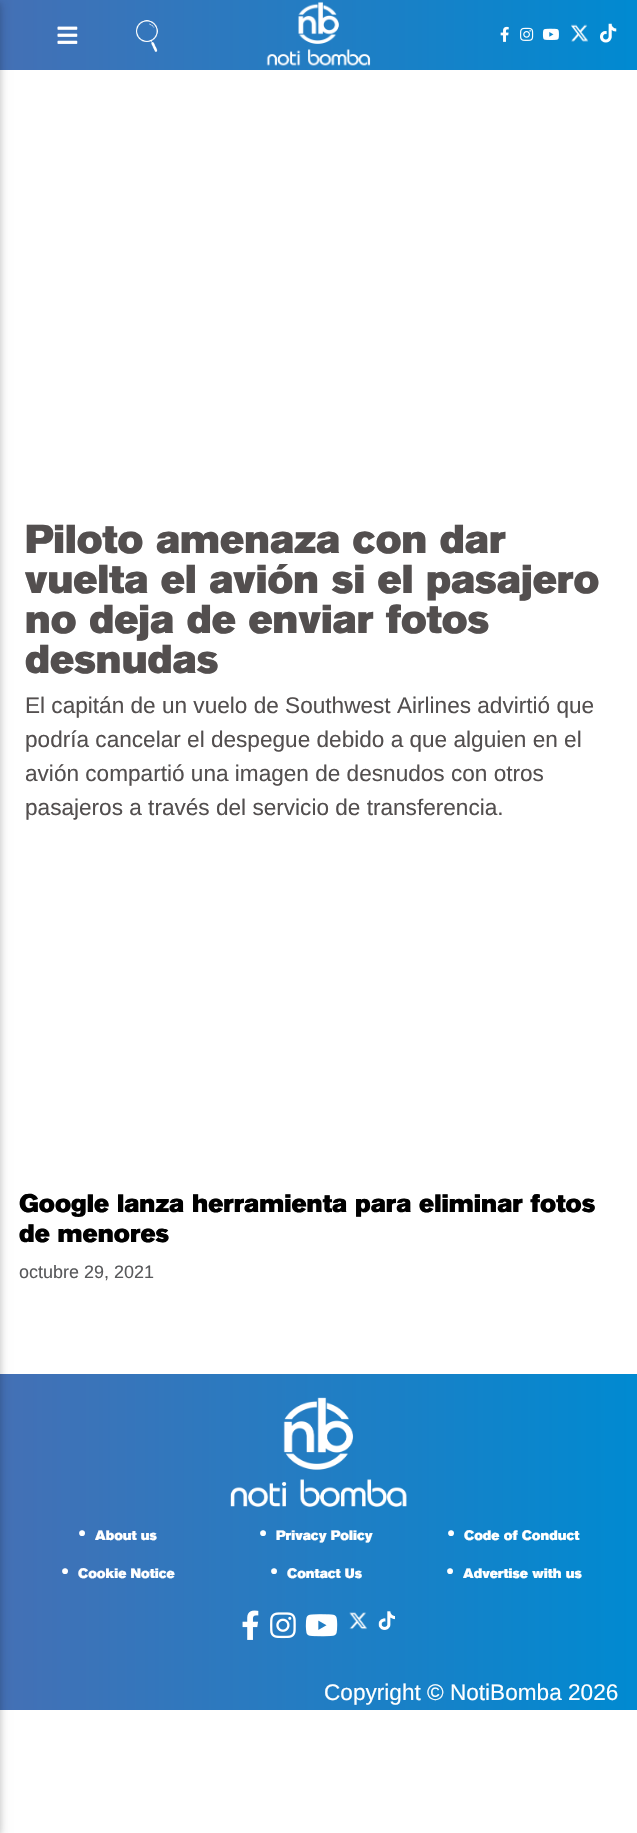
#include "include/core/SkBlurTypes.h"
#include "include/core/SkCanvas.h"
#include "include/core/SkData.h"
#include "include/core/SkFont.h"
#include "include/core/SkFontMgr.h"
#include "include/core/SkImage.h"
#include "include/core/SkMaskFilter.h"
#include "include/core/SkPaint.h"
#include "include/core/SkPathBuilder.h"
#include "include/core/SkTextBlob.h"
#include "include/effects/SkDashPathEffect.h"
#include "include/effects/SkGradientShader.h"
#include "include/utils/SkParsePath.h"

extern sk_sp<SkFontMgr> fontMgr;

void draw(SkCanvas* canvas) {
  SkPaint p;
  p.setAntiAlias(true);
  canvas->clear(SK_ColorWHITE);
  {
    const SkColor colors[] = {SkColorSetRGB(68, 112, 181), SkColorSetRGB(0, 138, 209)};
    const float stops[] = {0, 1};
    const SkPoint ends[] = {{0, 35}, {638, 35}};
    p.setShader(SkGradientShader::MakeLinear(ends, colors, stops, 2, SkTileMode::kClamp));
    p.setAlpha(255);
  }
  canvas->drawRect(SkRect::MakeLTRB(0, 0, 637, 70), p);
  canvas->drawImageRect(SkImages::DeferredFromEncodedData(SkData::MakeFromFileName("images/1.png")), SkRect::MakeLTRB(57, 26, 78, 44), SkSamplingOptions());
  canvas->drawImageRect(SkImages::DeferredFromEncodedData(SkData::MakeFromFileName("images/2.png")), SkRect::MakeLTRB(136, 20, 158, 52), SkSamplingOptions());
  canvas->drawImageRect(SkImages::DeferredFromEncodedData(SkData::MakeFromFileName("images/3.png")), SkRect::MakeLTRB(266, 1, 371, 66), SkSamplingOptions());
  canvas->drawImageRect(SkImages::DeferredFromEncodedData(SkData::MakeFromFileName("images/4.png")), SkRect::MakeLTRB(500, 26, 509, 42), SkSamplingOptions());
  canvas->drawImageRect(SkImages::DeferredFromEncodedData(SkData::MakeFromFileName("images/5.png")), SkRect::MakeLTRB(520, 27, 534, 41), SkSamplingOptions());
  canvas->drawImageRect(SkImages::DeferredFromEncodedData(SkData::MakeFromFileName("images/6.png")), SkRect::MakeLTRB(542, 28, 559, 40), SkSamplingOptions());
  canvas->drawImageRect(SkImages::DeferredFromEncodedData(SkData::MakeFromFileName("images/7.png")), SkRect::MakeLTRB(571, 24, 589, 42), SkSamplingOptions());
  canvas->drawImageRect(SkImages::DeferredFromEncodedData(SkData::MakeFromFileName("images/8.png")), SkRect::MakeLTRB(600, 23, 617, 43), SkSamplingOptions());
  {
    const SkColor colors[] = {SkColorSetRGB(68, 112, 181), SkColorSetRGB(0, 138, 209)};
    const float stops[] = {0, 1};
    const SkPoint ends[] = {{0, 1542}, {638, 1542}};
    p.setShader(SkGradientShader::MakeLinear(ends, colors, stops, 2, SkTileMode::kClamp));
    p.setAlpha(255);
  }
  canvas->drawRect(SkRect::MakeLTRB(0, 1374, 637, 1710), p);
  p.setShader(nullptr);
  p.setColor(SkColorSetARGB(31, 0, 0, 0));
  p.setMaskFilter(SkMaskFilter::MakeBlur(kNormal_SkBlurStyle, 6));
  canvas->drawRect(SkRect::MakeLTRB(-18, 3, 0, 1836), p);
  p.setMaskFilter(nullptr);
  p.setColor(SkColorSetARGB(41, 0, 0, 0));
  p.setMaskFilter(SkMaskFilter::MakeBlur(kNormal_SkBlurStyle, 3));
  canvas->drawRect(SkRect::MakeLTRB(-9, 3, 0, 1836), p);
  p.setMaskFilter(nullptr);
  canvas->drawImageRect(SkImages::DeferredFromEncodedData(SkData::MakeFromFileName("images/9.png")), SkRect::MakeLTRB(230, 1397, 407, 1507), SkSamplingOptions());
  canvas->drawImageRect(SkImages::DeferredFromEncodedData(SkData::MakeFromFileName("images/10.png")), SkRect::MakeLTRB(242, 1610, 259, 1640), SkSamplingOptions());
  canvas->drawImageRect(SkImages::DeferredFromEncodedData(SkData::MakeFromFileName("images/11.png")), SkRect::MakeLTRB(270, 1612, 296, 1639), SkSamplingOptions());
  canvas->drawImageRect(SkImages::DeferredFromEncodedData(SkData::MakeFromFileName("images/12.png")), SkRect::MakeLTRB(305, 1614, 338, 1637), SkSamplingOptions());
  canvas->drawImageRect(SkImages::DeferredFromEncodedData(SkData::MakeFromFileName("images/13.png")), SkRect::MakeLTRB(349, 1612, 368, 1630), SkSamplingOptions());
  canvas->drawImageRect(SkImages::DeferredFromEncodedData(SkData::MakeFromFileName("images/14.png")), SkRect::MakeLTRB(378, 1611, 395, 1630), SkSamplingOptions());
  SkFont font1(fontMgr->matchFamilyStyle("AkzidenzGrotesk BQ", SkFontStyle(500, SkFontStyle::kNormal_Width, SkFontStyle::kUpright_Slant)), 40);
  font1.setSubpixel(true);
  p.setColor(SkColorSetRGB(83, 79, 79));
  canvas->drawString("Piloto amenaza con dar", 25, 553, font1, p);
  canvas->drawString("vuelta el avión si el pasajero", 25, 593, font1, p);
  canvas->drawString("no deja de enviar fotos", 25, 633, font1, p);
  canvas->drawString("desnudas", 25, 673, font1, p);
  SkFont font2(fontMgr->matchFamilyStyle("Liberation Sans", SkFontStyle::Normal()), 22.6f);
  font2.setSubpixel(true);
  canvas->drawString("El capitán de un vuelo de Southwest Airlines advirtió que", 25, 713, font2, p);
  canvas->drawString("podría cancelar el despegue debido a que alguien en el", 25, 747, font2, p);
  canvas->drawString("avión compartió una imagen de desnudos con otros", 25, 781, font2, p);
  canvas->drawString("pasajeros a través del servicio de transferencia.", 25, 815, font2, p);
  SkFont font3(fontMgr->matchFamilyStyle("AkzidenzGrotesk BQ", SkFontStyle(500, SkFontStyle::kNormal_Width, SkFontStyle::kUpright_Slant)), 25);
  font3.setSubpixel(true);
  p.setColor(SK_ColorBLACK);
  canvas->drawString("Google lanza herramienta para eliminar fotos", 19, 1212, font3, p);
  canvas->drawString("de menores", 19, 1242, font3, p);
  SkFont font4(fontMgr->matchFamilyStyle("Liberation Sans", SkFontStyle::Normal()), 18);
  font4.setSubpixel(true);
  p.setColor(SkColorSetRGB(88, 89, 91));
  canvas->drawString("octubre 29, 2021", 19, 1278, font4, p);
  SkFont font5(fontMgr->matchFamilyStyle("Liberation Serif", SkFontStyle::Normal()), 13.5f);
  font5.setSubpixel(true);
  p.setColor(SK_ColorWHITE);
  canvas->drawString("●", 78, 1537, font5, p);
  SkFont font6(fontMgr->matchFamilyStyle("AkzidenzGrotesk BQ", SkFontStyle(500, SkFontStyle::kNormal_Width, SkFontStyle::kUpright_Slant)), 13.5f);
  font6.setSubpixel(true);
  canvas->drawString("About us", 95, 1540, font6, p);
  canvas->drawString("●", 259, 1537, font5, p);
  canvas->drawString("Privacy Policy", 276, 1540, font6, p);
  canvas->drawString("●", 447, 1537, font5, p);
  canvas->drawString("Code of Conduct", 464, 1540, font6, p);
  canvas->drawString("●", 61, 1575, font5, p);
  canvas->drawString("Cookie Notice", 78, 1578, font6, p);
  canvas->drawString("●", 270, 1575, font5, p);
  canvas->drawString("Contact Us", 287, 1578, font6, p);
  canvas->drawString("●", 446, 1575, font5, p);
  canvas->drawString("Advertise with us", 463, 1578, font6, p);
  canvas->drawString("Copyright © NotiBomba 2026", 324, 1700, font2, p);
}
